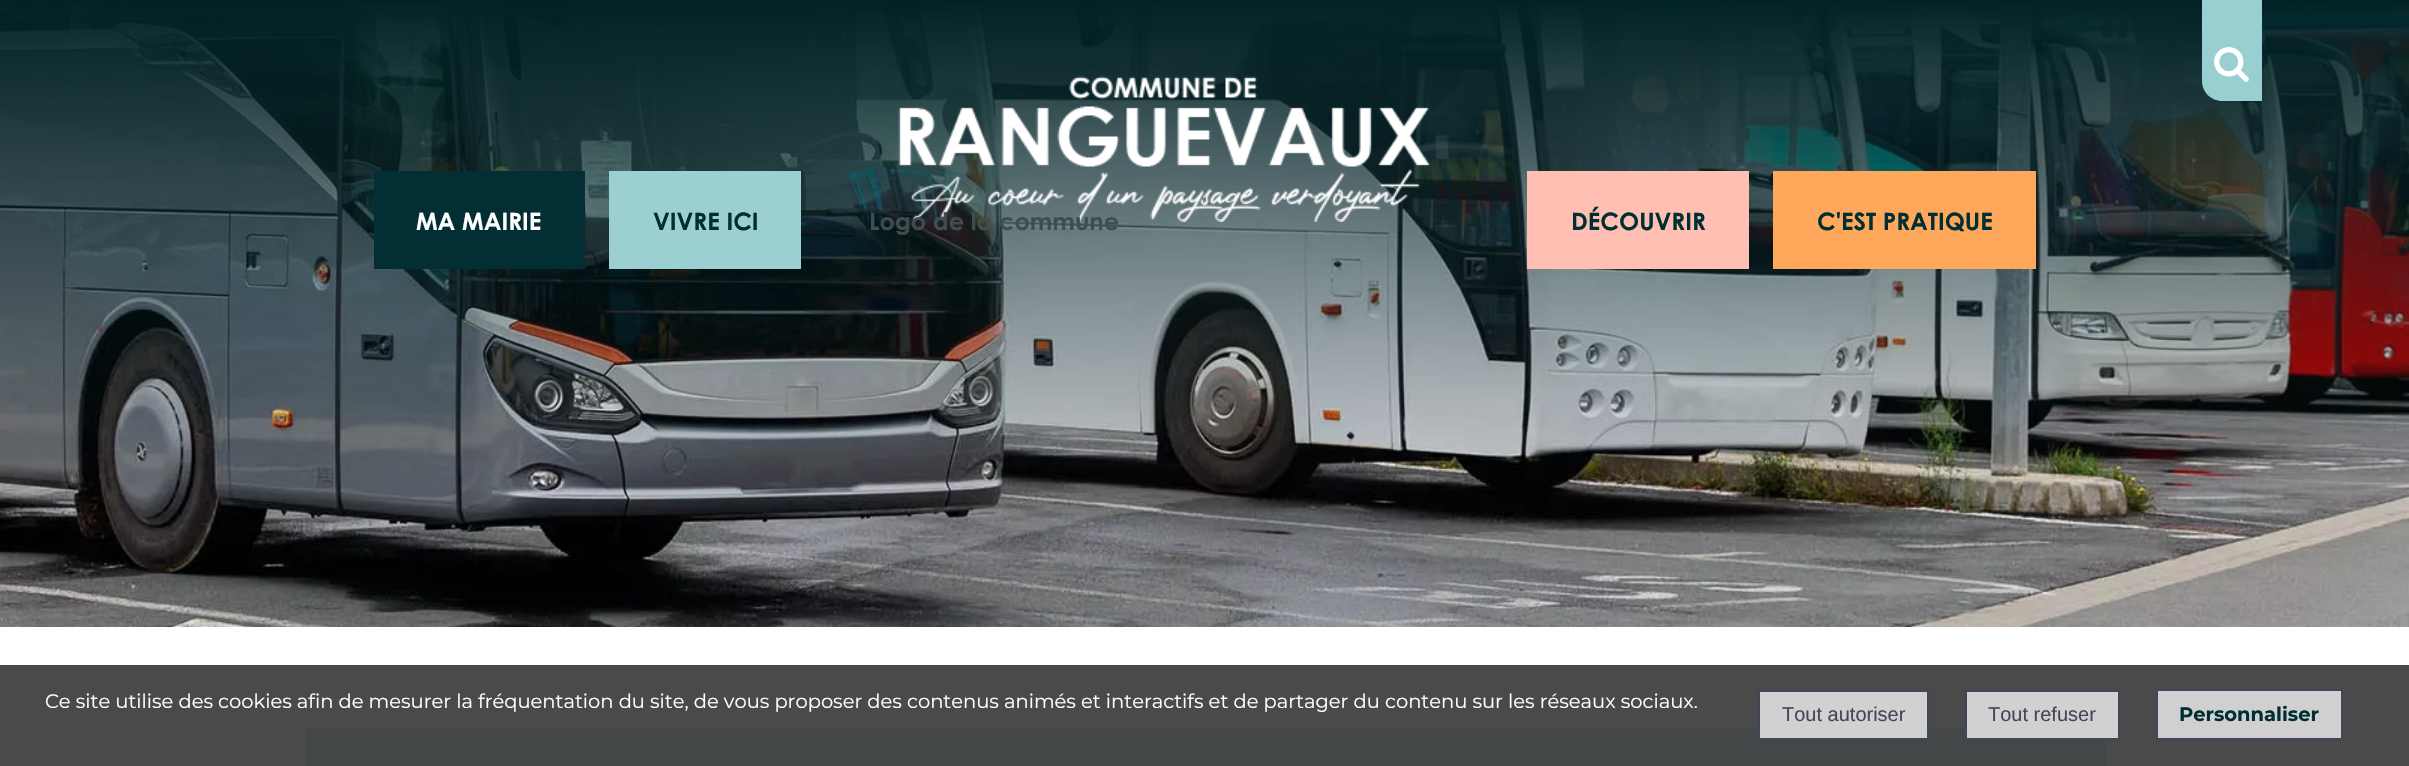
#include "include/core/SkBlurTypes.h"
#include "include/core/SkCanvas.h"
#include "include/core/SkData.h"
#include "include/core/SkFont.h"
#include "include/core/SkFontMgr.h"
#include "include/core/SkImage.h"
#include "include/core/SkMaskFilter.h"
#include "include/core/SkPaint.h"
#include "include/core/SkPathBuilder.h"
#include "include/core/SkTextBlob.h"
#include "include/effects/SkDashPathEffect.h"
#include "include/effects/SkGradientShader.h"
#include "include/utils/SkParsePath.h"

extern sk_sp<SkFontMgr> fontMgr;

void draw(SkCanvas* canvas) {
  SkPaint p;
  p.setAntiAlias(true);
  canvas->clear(SK_ColorWHITE);
  canvas->drawImageRect(SkImages::DeferredFromEncodedData(SkData::MakeFromFileName("images/2.png")), SkRect::MakeLTRB(0, 3, 2409, 627), SkSamplingOptions());
  {
    const SkColor colors[] = {SkColorSetRGB(1, 34, 37), SkColorSetARGB(0, 1, 34, 37)};
    const float stops[] = {0, 0.56f};
    const SkPoint ends[] = {{1205, 0}, {1205, 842}};
    p.setShader(SkGradientShader::MakeLinear(ends, colors, stops, 2, SkTileMode::kClamp));
    p.setAlpha(255);
  }
  canvas->drawRect(SkRect::MakeLTRB(0, 0, 2409, 461), p);
  p.setShader(nullptr);
  p.setColor(SkColorSetRGB(153, 207, 208));
  canvas->drawPath(SkPathBuilder().moveTo(2202, 0).lineTo(2262, 0).lineTo(2262, 101).lineTo(2222, 101).cubicTo(2211, 101, 2202, 92, 2202, 81).close().detach(), p);
  canvas->drawImageRect(SkImages::DeferredFromEncodedData(SkData::MakeFromFileName("images/1.png")), SkRect::MakeLTRB(2214, 47, 2249, 82), SkSamplingOptions());
  p.setColor(SkColorSetRGB(3, 47, 52));
  canvas->drawRect(SkRect::MakeLTRB(374, 171, 585, 269), p);
  p.setColor(SkColorSetRGB(156, 207, 209));
  canvas->drawRect(SkRect::MakeLTRB(609, 171, 801, 269), p);
  canvas->drawImageRect(SkImages::DeferredFromEncodedData(SkData::MakeFromFileName("images/3.png")), SkRect::MakeLTRB(898, 76, 1430, 222), SkSamplingOptions());
  p.setColor(SkColorSetRGB(255, 192, 179));
  canvas->drawRect(SkRect::MakeLTRB(1527, 171, 1749, 269), p);
  p.setColor(SkColorSetRGB(255, 168, 92));
  canvas->drawRect(SkRect::MakeLTRB(1773, 171, 2036, 269), p);
  p.setColor(SkColorSetRGB(219, 238, 239));
  canvas->drawRect(SkRect::MakeLTRB(305, 728, 2105, 766), p);
  p.setColor(SkColorSetARGB(209, 34, 34, 34));
  canvas->drawRect(SkRect::MakeLTRB(0, 665, 2409, 766), p);
  p.setColor(SkColorSetARGB(189, 255, 255, 255));
  canvas->drawRect(SkRect::MakeLTRB(1759, 691, 1928, 739), p);
  p.setStyle(SkPaint::kStroke_Style);
  p.setStrokeWidth(2);
  p.setColor(SkColorSetRGB(66, 71, 88));
  canvas->drawRect(SkRect::MakeLTRB(1759, 691, 1928, 739), p);
  p.setStyle(SkPaint::kFill_Style);
  p.setColor(SkColorSetARGB(189, 255, 255, 255));
  canvas->drawRect(SkRect::MakeLTRB(1966, 691, 2119, 739), p);
  p.setStyle(SkPaint::kStroke_Style);
  p.setColor(SkColorSetRGB(66, 71, 88));
  canvas->drawRect(SkRect::MakeLTRB(1966, 691, 2119, 739), p);
  p.setStyle(SkPaint::kFill_Style);
  p.setColor(SkColorSetRGB(208, 208, 208));
  canvas->drawRect(SkRect::MakeLTRB(2157, 690, 2342, 739), p);
  p.setStyle(SkPaint::kStroke_Style);
  p.setColor(SkColorSetRGB(66, 71, 88));
  canvas->drawRect(SkRect::MakeLTRB(2157, 690, 2342, 739), p);
  SkFont font1(fontMgr->matchFamilyStyle("Century Gothic", SkFontStyle::Bold()), 24);
  font1.setSubpixel(true);
  p.setStyle(SkPaint::kFill_Style);
  p.setColor(SK_ColorWHITE);
  canvas->drawString("MA MAIRIE", 416, 230, font1, p);
  p.setColor(SkColorSetRGB(0, 47, 51));
  canvas->drawString("VIVRE ICI", 653, 230, font1, p);
  p.setColor(SkColorSetRGB(64, 77, 79));
  canvas->drawString("Logo de la commune", 869, 230, font1, p);
  p.setColor(SkColorSetRGB(0, 47, 51));
  canvas->drawString("DÉCOUVRIR", 1571, 230, font1, p);
  canvas->drawString("C'EST PRATIQUE", 1817, 230, font1, p);
  SkFont font2(fontMgr->matchFamilyStyle("Montserrat", SkFontStyle::Normal()), 19.5f);
  font2.setSubpixel(true);
  p.setColor(SK_ColorWHITE);
  canvas->drawString("Ce site utilise des cookies afin de mesurer la fréquentation du site, de vous proposer des contenus animés et interactifs et de partager du contenu sur les réseaux sociaux.", 45, 708, font2, p);
  SkFont font3(fontMgr->matchFamilyStyle("Liberation Sans", SkFontStyle::Normal()), 20);
  font3.setSubpixel(true);
  p.setColor(SkColorSetRGB(66, 71, 88));
  canvas->drawString("Tout autoriser", 1782, 721, font3, p);
  canvas->drawString("Tout refuser", 1988, 721, font3, p);
  SkFont font4(fontMgr->matchFamilyStyle("Montserrat", SkFontStyle::Bold()), 19.5f);
  font4.setSubpixel(true);
  p.setColor(SkColorSetRGB(0, 47, 51));
  canvas->drawString("Personnaliser", 2179, 721, font4, p);
}
